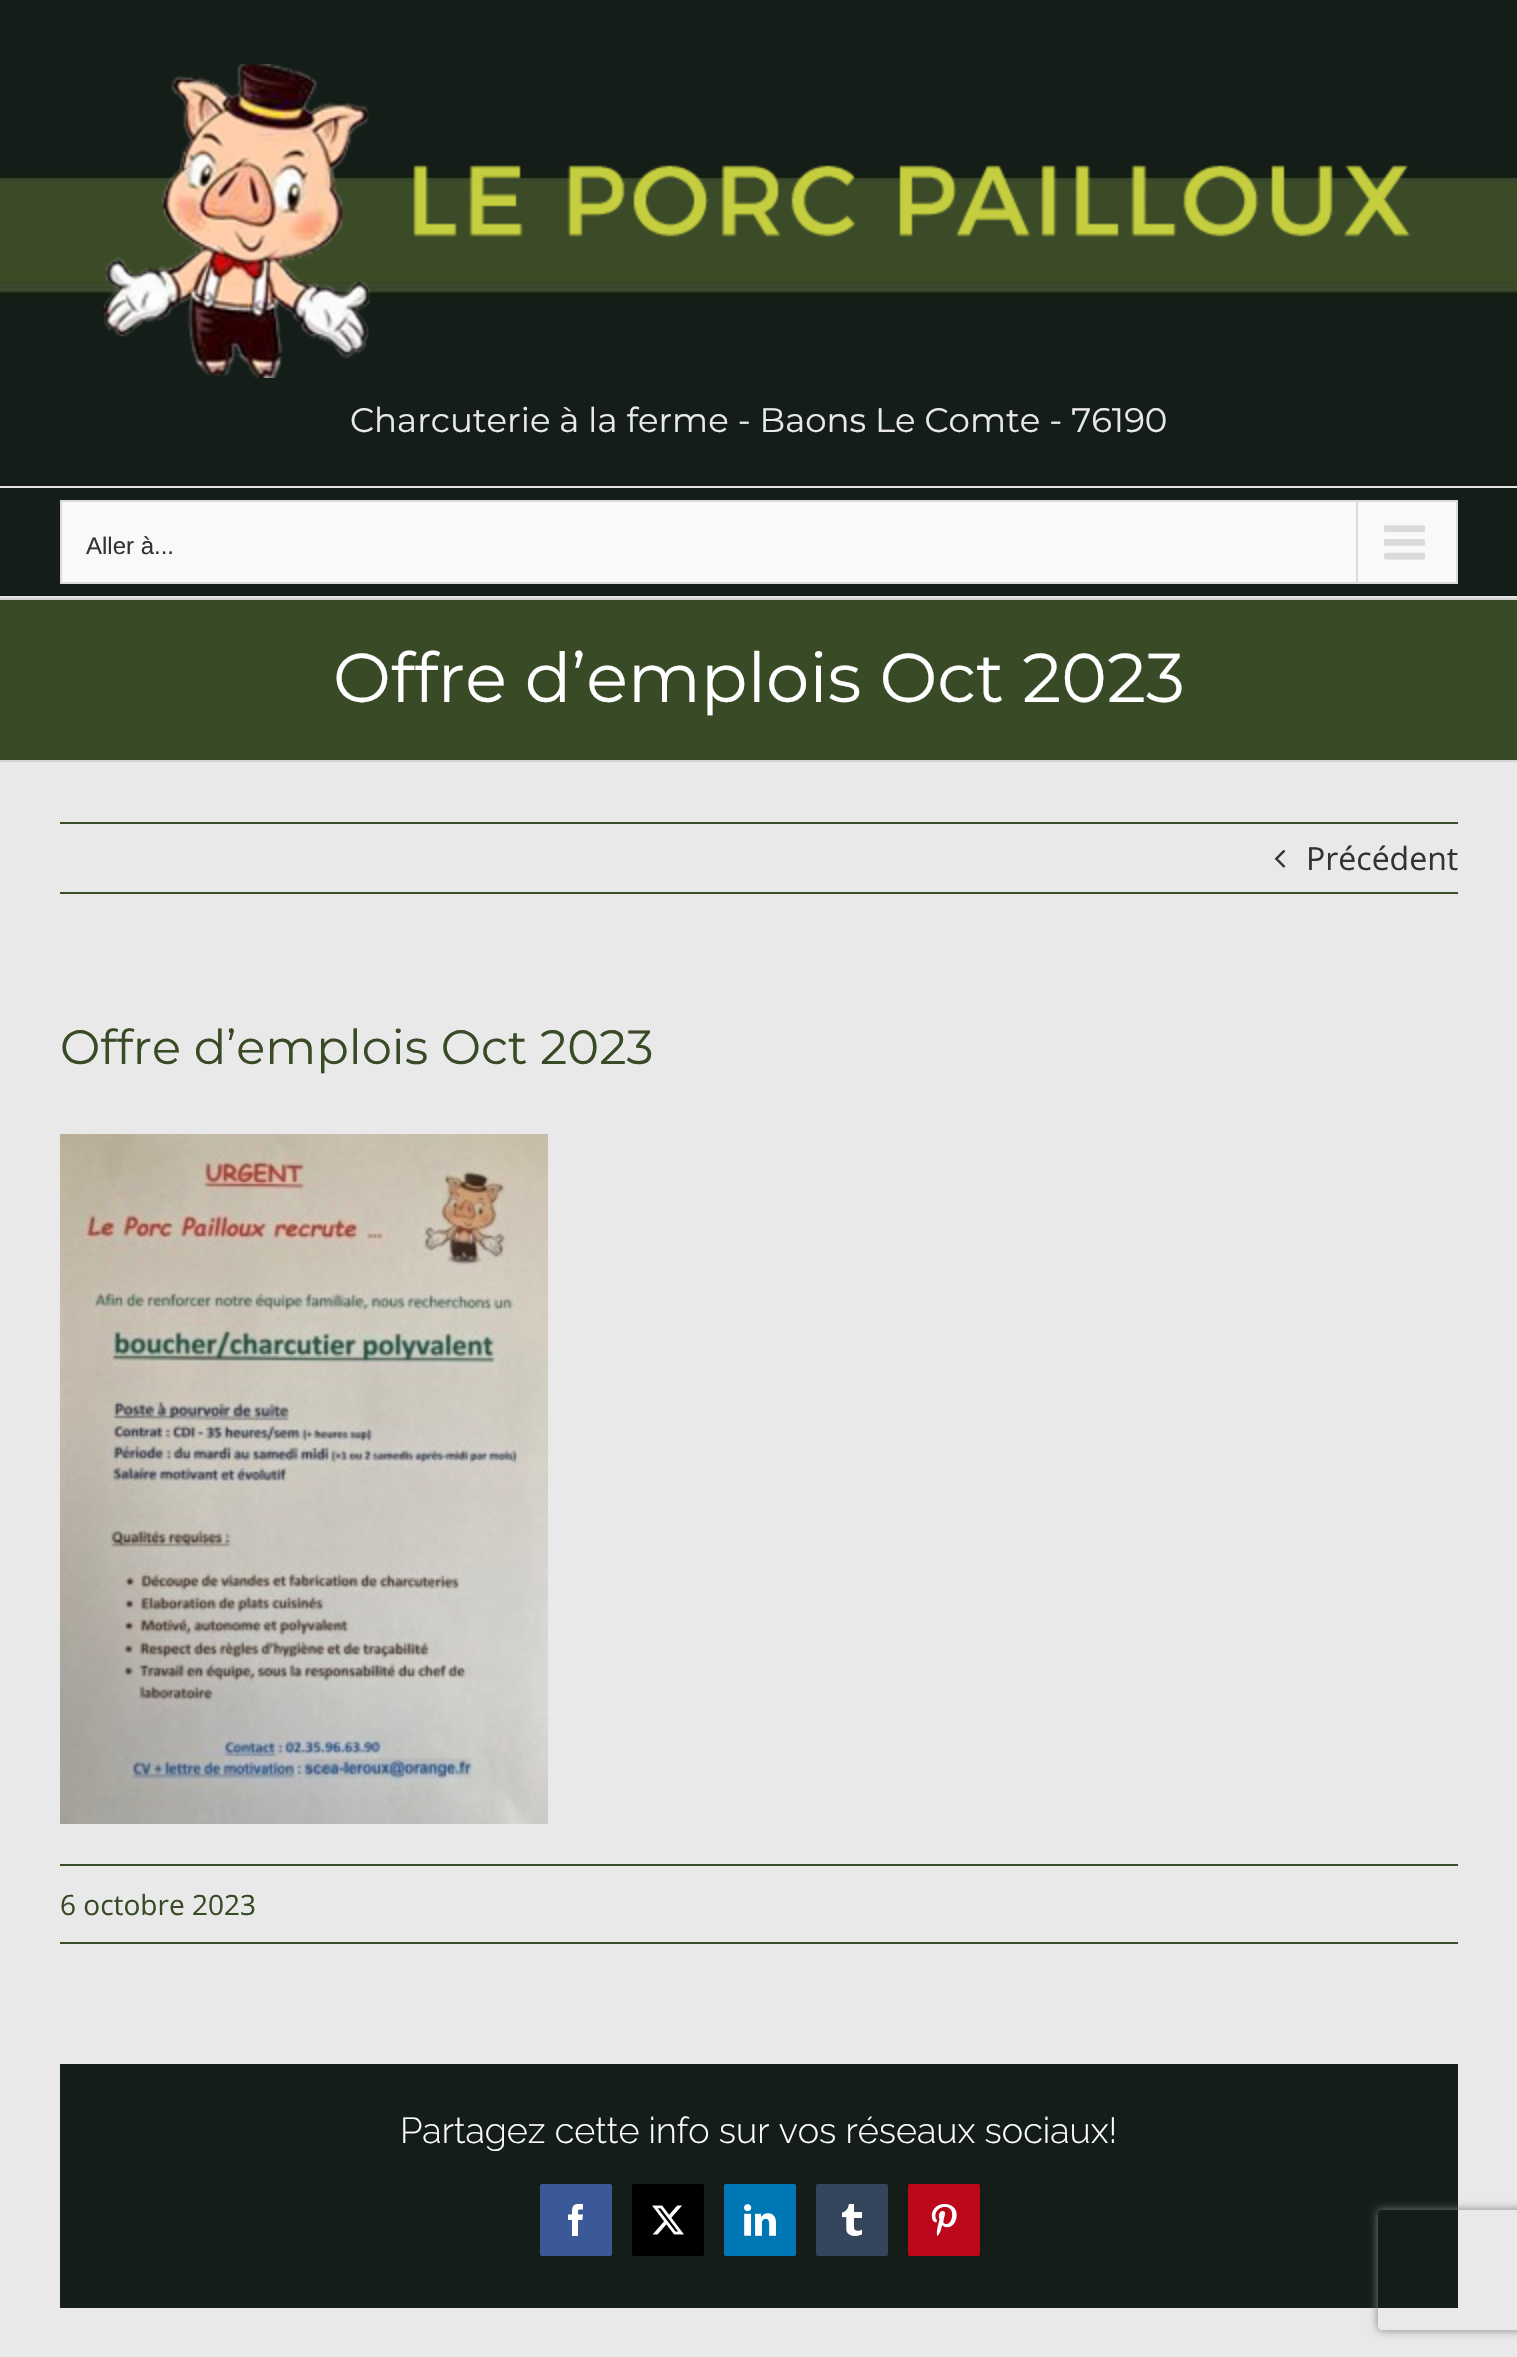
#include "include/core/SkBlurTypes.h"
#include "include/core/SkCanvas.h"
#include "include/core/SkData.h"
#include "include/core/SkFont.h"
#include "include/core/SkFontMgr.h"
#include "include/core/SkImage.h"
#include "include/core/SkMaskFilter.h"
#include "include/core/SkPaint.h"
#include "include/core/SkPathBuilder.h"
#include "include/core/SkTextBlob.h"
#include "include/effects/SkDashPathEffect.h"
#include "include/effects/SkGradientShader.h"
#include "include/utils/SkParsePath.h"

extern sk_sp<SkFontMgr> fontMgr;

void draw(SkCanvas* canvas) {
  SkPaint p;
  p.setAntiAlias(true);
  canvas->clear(SkColorSetRGB(57, 74, 38));
  p.setColor(SkColorSetRGB(20, 29, 24));
  canvas->drawRect(SkRect::MakeLTRB(0, 0, 1517, 486), p);
  canvas->drawImageRect(SkImages::DeferredFromEncodedData(SkData::MakeFromFileName("images/1.png")), SkRect::MakeLTRB(0, 175, 1517, 297), SkSamplingOptions());
  p.setColor(SkColorSetRGB(229, 229, 229));
  canvas->drawRect(SkRect::MakeLTRB(0, 486, 1517, 488), p);
  canvas->drawImageRect(SkImages::DeferredFromEncodedData(SkData::MakeFromFileName("images/2.png")), SkRect::MakeLTRB(103, 64, 1411, 378), SkSamplingOptions());
  p.setColor(SkColorSetRGB(20, 29, 24));
  canvas->drawRect(SkRect::MakeLTRB(0, 488, 1517, 596), p);
  p.setColor(SkColorSetRGB(229, 229, 229));
  canvas->drawRect(SkRect::MakeLTRB(0, 596, 1517, 598), p);
  p.setColor(SkColorSetRGB(249, 249, 249));
  canvas->drawRect(SkRect::MakeLTRB(61, 501, 1457, 583), p);
  p.setStyle(SkPaint::kStroke_Style);
  p.setStrokeWidth(2);
  p.setColor(SkColorSetRGB(218, 218, 218));
  canvas->drawRect(SkRect::MakeLTRB(61, 501, 1457, 583), p);
  p.setStyle(SkPaint::kFill_Style);
  canvas->drawRect(SkRect::MakeLTRB(1356, 502, 1358, 582), p);
  canvas->drawImageRect(SkImages::DeferredFromEncodedData(SkData::MakeFromFileName("images/3.png")), SkRect::MakeLTRB(1384, 525, 1426, 560), SkSamplingOptions());
  p.setColor(SkColorSetRGB(210, 211, 212));
  canvas->drawRect(SkRect::MakeLTRB(0, 598, 1517, 600), p);
  canvas->drawRect(SkRect::MakeLTRB(0, 760, 1517, 762), p);
  p.setColor(SkColorSetRGB(233, 233, 233));
  canvas->drawRect(SkRect::MakeLTRB(0, 762, 1517, 2357), p);
  p.setColor(SkColorSetRGB(59, 80, 38));
  canvas->drawRect(SkRect::MakeLTRB(60, 822, 1458, 824), p);
  canvas->drawRect(SkRect::MakeLTRB(60, 892, 1458, 894), p);
  canvas->drawImageRect(SkImages::DeferredFromEncodedData(SkData::MakeFromFileName("images/4.png")), SkRect::MakeLTRB(1274, 849, 1286, 868), SkSamplingOptions());
  canvas->drawImageRect(SkImages::DeferredFromEncodedData(SkData::MakeFromFileName("images/5.png")), SkRect::MakeLTRB(60, 1134, 548, 1824), SkSamplingOptions());
  canvas->drawRect(SkRect::MakeLTRB(60, 1864, 1458, 1866), p);
  canvas->drawRect(SkRect::MakeLTRB(60, 1942, 1458, 1944), p);
  p.setColor(SkColorSetRGB(20, 29, 24));
  canvas->drawRect(SkRect::MakeLTRB(60, 2064, 1458, 2308), p);
  p.setColor(SkColorSetRGB(59, 89, 152));
  canvas->drawRoundRect(SkRect::MakeLTRB(541, 2185, 611, 2255), 1, 1, p);
  p.setStyle(SkPaint::kStroke_Style);
  canvas->drawRoundRect(SkRect::MakeLTRB(541, 2185, 611, 2255), 1, 1, p);
  canvas->drawImageRect(SkImages::DeferredFromEncodedData(SkData::MakeFromFileName("images/6.png")), SkRect::MakeLTRB(568, 2204, 583, 2236), SkSamplingOptions());
  p.setStyle(SkPaint::kFill_Style);
  p.setColor(SK_ColorBLACK);
  canvas->drawRoundRect(SkRect::MakeLTRB(633, 2185, 703, 2255), 1, 1, p);
  p.setStyle(SkPaint::kStroke_Style);
  canvas->drawRoundRect(SkRect::MakeLTRB(633, 2185, 703, 2255), 1, 1, p);
  canvas->drawImageRect(SkImages::DeferredFromEncodedData(SkData::MakeFromFileName("images/7.png")), SkRect::MakeLTRB(652, 2205, 684, 2235), SkSamplingOptions());
  p.setStyle(SkPaint::kFill_Style);
  p.setColor(SkColorSetRGB(0, 119, 181));
  canvas->drawRoundRect(SkRect::MakeLTRB(725, 2185, 795, 2255), 1, 1, p);
  p.setStyle(SkPaint::kStroke_Style);
  canvas->drawRoundRect(SkRect::MakeLTRB(725, 2185, 795, 2255), 1, 1, p);
  canvas->drawImageRect(SkImages::DeferredFromEncodedData(SkData::MakeFromFileName("images/8.png")), SkRect::MakeLTRB(744, 2204, 776, 2236), SkSamplingOptions());
  p.setStyle(SkPaint::kFill_Style);
  p.setColor(SkColorSetRGB(53, 70, 92));
  canvas->drawRoundRect(SkRect::MakeLTRB(817, 2185, 887, 2255), 1, 1, p);
  p.setStyle(SkPaint::kStroke_Style);
  canvas->drawRoundRect(SkRect::MakeLTRB(817, 2185, 887, 2255), 1, 1, p);
  canvas->drawImageRect(SkImages::DeferredFromEncodedData(SkData::MakeFromFileName("images/9.png")), SkRect::MakeLTRB(842, 2204, 862, 2236), SkSamplingOptions());
  p.setStyle(SkPaint::kFill_Style);
  p.setColor(SkColorSetRGB(189, 8, 28));
  canvas->drawRoundRect(SkRect::MakeLTRB(909, 2185, 979, 2255), 1, 1, p);
  p.setStyle(SkPaint::kStroke_Style);
  canvas->drawRoundRect(SkRect::MakeLTRB(909, 2185, 979, 2255), 1, 1, p);
  canvas->drawImageRect(SkImages::DeferredFromEncodedData(SkData::MakeFromFileName("images/10.png")), SkRect::MakeLTRB(931, 2204, 957, 2236), SkSamplingOptions());
  canvas->save();
  canvas->clipPath(SkPathBuilder(SkPathFillType::kEvenOdd).moveTo(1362, 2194).lineTo(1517, 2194).lineTo(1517, 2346).lineTo(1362, 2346).close().moveTo(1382, 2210).lineTo(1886, 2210).cubicTo(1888, 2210, 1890, 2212, 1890, 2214).lineTo(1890, 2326).cubicTo(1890, 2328, 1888, 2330, 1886, 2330).lineTo(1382, 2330).cubicTo(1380, 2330, 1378, 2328, 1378, 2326).lineTo(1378, 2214).cubicTo(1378, 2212, 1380, 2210, 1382, 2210).close().detach(), true);
  p.setStyle(SkPaint::kFill_Style);
  p.setColor(SkColorSetRGB(128, 128, 128));
  p.setMaskFilter(SkMaskFilter::MakeBlur(kNormal_SkBlurStyle, 5));
  canvas->drawRoundRect(SkRect::MakeLTRB(1378, 2210, 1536, 2330), 4, 4, p);
  p.setMaskFilter(nullptr);
  canvas->restore();
  SkFont font1(fontMgr->matchFamilyStyle("Montserrat", SkFontStyle(100, SkFontStyle::kNormal_Width, SkFontStyle::kUpright_Slant)), 34);
  font1.setSubpixel(true);
  p.setColor(SkColorSetRGB(233, 233, 233));
  canvas->drawString("Charcuterie à la ferme - Baons Le Comte - 76190", 350, 432, font1, p);
  SkFont font2(fontMgr->matchFamilyStyle("Liberation Sans", SkFontStyle::Normal()), 24);
  font2.setSubpixel(true);
  p.setColor(SkColorSetRGB(51, 51, 51));
  canvas->drawString("Aller à...", 86, 554, font2, p);
  SkFont font3(fontMgr->matchFamilyStyle("Montserrat", SkFontStyle(100, SkFontStyle::kNormal_Width, SkFontStyle::kUpright_Slant)), 68.9f);
  font3.setSubpixel(true);
  p.setColor(SK_ColorWHITE);
  canvas->drawString("Offre d’emplois Oct 2023", 333, 702, font3, p);
  SkFont font4(fontMgr->matchFamilyStyle("Open Sans", SkFontStyle::Normal()), 32);
  font4.setSubpixel(true);
  p.setColor(SkColorSetRGB(51, 51, 51));
  canvas->drawString("Précédent", 1306, 870, font4, p);
  SkFont font5(fontMgr->matchFamilyStyle("Montserrat", SkFontStyle(100, SkFontStyle::kNormal_Width, SkFontStyle::kUpright_Slant)), 48);
  font5.setSubpixel(true);
  p.setColor(SkColorSetRGB(57, 74, 38));
  canvas->drawString("Offre d’emplois Oct 2023", 60, 1064, font5, p);
  SkFont font6(fontMgr->matchFamilyStyle("Open Sans", SkFontStyle::Normal()), 28);
  font6.setSubpixel(true);
  canvas->drawString("6 octobre 2023", 60, 1915, font6, p);
  SkFont font7(fontMgr->matchFamilyStyle("Raleway", SkFontStyle(100, SkFontStyle::kNormal_Width, SkFontStyle::kUpright_Slant)), 36);
  font7.setSubpixel(true);
  p.setColor(SK_ColorWHITE);
  canvas->drawString("Partagez cette info sur vos réseaux sociaux!", 400, 2143, font7, p);
}
